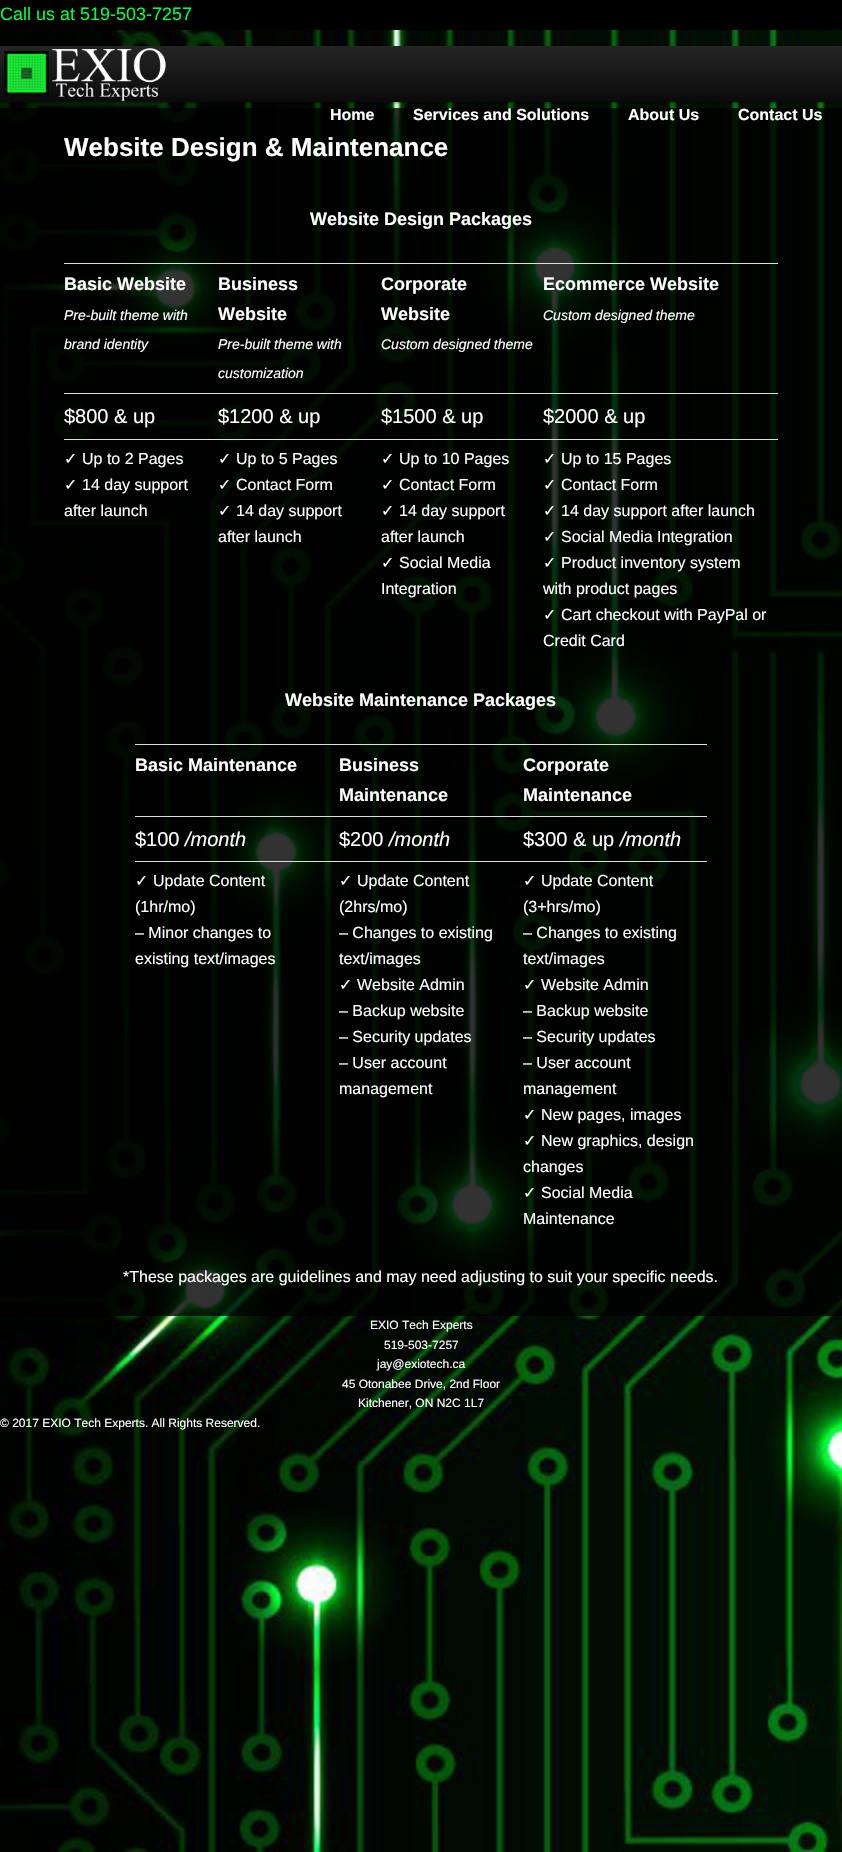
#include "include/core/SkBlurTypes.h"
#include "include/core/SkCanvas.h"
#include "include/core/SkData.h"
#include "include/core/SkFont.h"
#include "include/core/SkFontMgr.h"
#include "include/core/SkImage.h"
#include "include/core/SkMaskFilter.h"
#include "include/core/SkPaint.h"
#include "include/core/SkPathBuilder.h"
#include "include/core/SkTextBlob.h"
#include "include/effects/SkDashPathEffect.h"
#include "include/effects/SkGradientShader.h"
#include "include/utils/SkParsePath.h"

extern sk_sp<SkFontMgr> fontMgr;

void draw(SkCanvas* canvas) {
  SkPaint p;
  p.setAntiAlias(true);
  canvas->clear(SK_ColorWHITE);
  canvas->drawImageRect(SkImages::DeferredFromEncodedData(SkData::MakeFromFileName("images/1.png")), SkRect::MakeLTRB(0, 30, 842, 1852), SkSamplingOptions());
  p.setColor(SK_ColorBLACK);
  canvas->drawRect(SkRect::MakeLTRB(0, 0, 842, 30), p);
  p.setColor(SkColorSetARGB(102, 0, 0, 0));
  p.setMaskFilter(SkMaskFilter::MakeBlur(kNormal_SkBlurStyle, 1));
  canvas->drawRect(SkRect::MakeLTRB(0, 47, 842, 103), p);
  p.setMaskFilter(nullptr);
  {
    const SkColor colors[] = {SkColorSetRGB(37, 37, 37), SkColorSetRGB(10, 10, 10)};
    const float stops[] = {0, 1};
    const SkPoint ends[] = {{421, 46}, {421, 102}};
    p.setShader(SkGradientShader::MakeLinear(ends, colors, stops, 2, SkTileMode::kClamp));
    p.setAlpha(255);
  }
  canvas->drawRect(SkRect::MakeLTRB(0, 46, 842, 102), p);
  canvas->drawImageRect(SkImages::DeferredFromEncodedData(SkData::MakeFromFileName("images/2.png")), SkRect::MakeLTRB(4, 48, 166, 102), SkSamplingOptions());
  p.setShader(nullptr);
  p.setColor(SkColorSetARGB(204, 0, 0, 0));
  canvas->drawRect(SkRect::MakeLTRB(0, 108, 842, 1316), p);
  p.setColor(SkColorSetRGB(221, 221, 221));
  canvas->drawRect(SkRect::MakeLTRB(64, 263, 778, 264), p);
  canvas->drawRect(SkRect::MakeLTRB(64, 393, 778, 394), p);
  canvas->drawRect(SkRect::MakeLTRB(64, 439, 778, 440), p);
  canvas->drawRect(SkRect::MakeLTRB(135, 744, 707, 745), p);
  canvas->drawRect(SkRect::MakeLTRB(135, 816, 707, 817), p);
  canvas->drawRect(SkRect::MakeLTRB(135, 861, 707, 862), p);
  SkFont font1(fontMgr->matchFamilyStyle("Liberation Sans", SkFontStyle::Normal()), 18);
  font1.setSubpixel(true);
  p.setColor(SkColorSetRGB(3, 253, 65));
  canvas->drawString("Call us at 519-503-7257", 0, 20, font1, p);
  SkFont font2(fontMgr->matchFamilyStyle("Liberation Sans", SkFontStyle::Bold()), 16);
  font2.setSubpixel(true);
  p.setColor(SK_ColorWHITE);
  canvas->drawString("Home", 330, 120, font2, p);
  canvas->drawString("Services and Solutions", 413, 120, font2, p);
  canvas->drawString("About Us", 628, 120, font2, p);
  canvas->drawString("Contact Us", 738, 120, font2, p);
  SkFont font3(fontMgr->matchFamilyStyle("Liberation Sans", SkFontStyle::Bold()), 26);
  font3.setSubpixel(true);
  canvas->drawString("Website Design & Maintenance", 64, 156, font3, p);
  SkFont font4(fontMgr->matchFamilyStyle("Liberation Sans", SkFontStyle::Bold()), 18);
  font4.setSubpixel(true);
  canvas->drawString("Website Design Packages", 310, 225, font4, p);
  canvas->drawString("Basic Website", 64, 290, font4, p);
  SkFont font5(fontMgr->matchFamilyStyle("Liberation Sans", SkFontStyle::Italic()), 14);
  font5.setSubpixel(true);
  canvas->drawString("Pre-built theme with", 64, 320, font5, p);
  canvas->drawString("brand identity", 64, 349, font5, p);
  canvas->drawString("Business", 218, 290, font4, p);
  canvas->drawString("Website", 218, 320, font4, p);
  canvas->drawString("Pre-built theme with", 218, 349, font5, p);
  canvas->drawString("customization", 218, 378, font5, p);
  canvas->drawString("Corporate", 381, 290, font4, p);
  canvas->drawString("Website", 381, 320, font4, p);
  canvas->drawString("Custom designed theme", 381, 349, font5, p);
  canvas->drawString("Ecommerce Website", 543, 290, font4, p);
  canvas->drawString("Custom designed theme", 543, 320, font5, p);
  SkFont font6(fontMgr->matchFamilyStyle("Liberation Sans", SkFontStyle::Normal()), 20);
  font6.setSubpixel(true);
  canvas->drawString("$800 & up", 64, 423, font6, p);
  canvas->drawString("$1200 & up", 218, 423, font6, p);
  canvas->drawString("$1500 & up", 381, 423, font6, p);
  canvas->drawString("$2000 & up", 543, 423, font6, p);
  SkFont font7(fontMgr->matchFamilyStyle("DejaVu Sans", SkFontStyle::Normal()), 16);
  font7.setSubpixel(true);
  canvas->drawString("✓", 64, 464, font7, p);
  SkFont font8(fontMgr->matchFamilyStyle("Liberation Sans", SkFontStyle::Normal()), 16);
  font8.setSubpixel(true);
  canvas->drawString("Up to 2 Pages", 82, 464, font8, p);
  canvas->drawString("✓", 64, 490, font7, p);
  canvas->drawString("14 day support", 82, 490, font8, p);
  canvas->drawString("after launch", 64, 516, font8, p);
  canvas->drawString("✓", 218, 464, font7, p);
  canvas->drawString("Up to 5 Pages", 236, 464, font8, p);
  canvas->drawString("✓", 218, 490, font7, p);
  canvas->drawString("Contact Form", 236, 490, font8, p);
  canvas->drawString("✓", 218, 516, font7, p);
  canvas->drawString("14 day support", 236, 516, font8, p);
  canvas->drawString("after launch", 218, 542, font8, p);
  canvas->drawString("✓", 381, 464, font7, p);
  canvas->drawString("Up to 10 Pages", 399, 464, font8, p);
  canvas->drawString("✓", 381, 490, font7, p);
  canvas->drawString("Contact Form", 399, 490, font8, p);
  canvas->drawString("✓", 381, 516, font7, p);
  canvas->drawString("14 day support", 399, 516, font8, p);
  canvas->drawString("after launch", 381, 542, font8, p);
  canvas->drawString("✓", 381, 568, font7, p);
  canvas->drawString("Social Media", 399, 568, font8, p);
  canvas->drawString("Integration", 381, 594, font8, p);
  canvas->drawString("✓", 543, 464, font7, p);
  canvas->drawString("Up to 15 Pages", 561, 464, font8, p);
  canvas->drawString("✓", 543, 490, font7, p);
  canvas->drawString("Contact Form", 561, 490, font8, p);
  canvas->drawString("✓", 543, 516, font7, p);
  canvas->drawString("14 day support after launch", 561, 516, font8, p);
  canvas->drawString("✓", 543, 542, font7, p);
  canvas->drawString("Social Media Integration", 561, 542, font8, p);
  canvas->drawString("✓", 543, 568, font7, p);
  canvas->drawString("Product inventory system", 561, 568, font8, p);
  canvas->drawString("with product pages", 543, 594, font8, p);
  canvas->drawString("✓", 543, 620, font7, p);
  canvas->drawString("Cart checkout with PayPal or", 561, 620, font8, p);
  canvas->drawString("Credit Card", 543, 646, font8, p);
  canvas->drawString("Website Maintenance Packages", 285, 706, font4, p);
  canvas->drawString("Basic Maintenance", 135, 771, font4, p);
  canvas->drawString("Business", 339, 771, font4, p);
  canvas->drawString("Maintenance", 339, 801, font4, p);
  canvas->drawString("Corporate", 523, 771, font4, p);
  canvas->drawString("Maintenance", 523, 801, font4, p);
  canvas->drawString("$100", 135, 846, font6, p);
  SkFont font9(fontMgr->matchFamilyStyle("Liberation Sans", SkFontStyle::Italic()), 20);
  font9.setSubpixel(true);
  canvas->drawString("/month", 185, 846, font9, p);
  canvas->drawString("$200", 339, 846, font6, p);
  canvas->drawString("/month", 389, 846, font9, p);
  canvas->drawString("$300 & up", 523, 846, font6, p);
  canvas->drawString("/month", 620, 846, font9, p);
  canvas->drawString("✓", 135, 886, font7, p);
  canvas->drawString("Update Content", 153, 886, font8, p);
  canvas->drawString("(1hr/mo)", 135, 912, font8, p);
  canvas->drawString("– Minor changes to", 135, 938, font8, p);
  canvas->drawString("existing text/images", 135, 964, font8, p);
  canvas->drawString("✓", 339, 886, font7, p);
  canvas->drawString("Update Content", 357, 886, font8, p);
  canvas->drawString("(2hrs/mo)", 339, 912, font8, p);
  canvas->drawString("– Changes to existing", 339, 938, font8, p);
  canvas->drawString("text/images", 339, 964, font8, p);
  canvas->drawString("✓", 339, 990, font7, p);
  canvas->drawString("Website Admin", 357, 990, font8, p);
  canvas->drawString("– Backup website", 339, 1016, font8, p);
  canvas->drawString("– Security updates", 339, 1042, font8, p);
  canvas->drawString("– User account", 339, 1068, font8, p);
  canvas->drawString("management", 339, 1094, font8, p);
  canvas->drawString("✓", 523, 886, font7, p);
  canvas->drawString("Update Content", 541, 886, font8, p);
  canvas->drawString("(3+hrs/mo)", 523, 912, font8, p);
  canvas->drawString("– Changes to existing", 523, 938, font8, p);
  canvas->drawString("text/images", 523, 964, font8, p);
  canvas->drawString("✓", 523, 990, font7, p);
  canvas->drawString("Website Admin", 541, 990, font8, p);
  canvas->drawString("– Backup website", 523, 1016, font8, p);
  canvas->drawString("– Security updates", 523, 1042, font8, p);
  canvas->drawString("– User account", 523, 1068, font8, p);
  canvas->drawString("management", 523, 1094, font8, p);
  canvas->drawString("✓", 523, 1120, font7, p);
  canvas->drawString("New pages, images", 541, 1120, font8, p);
  canvas->drawString("✓", 523, 1146, font7, p);
  canvas->drawString("New graphics, design", 541, 1146, font8, p);
  canvas->drawString("changes", 523, 1172, font8, p);
  canvas->drawString("✓", 523, 1198, font7, p);
  canvas->drawString("Social Media", 541, 1198, font8, p);
  canvas->drawString("Maintenance", 523, 1224, font8, p);
  canvas->drawString("*These packages are guidelines and may need adjusting to suit your specific needs.", 123, 1282, font8, p);
  SkFont font10(fontMgr->matchFamilyStyle("Liberation Sans", SkFontStyle::Normal()), 12);
  font10.setSubpixel(true);
  canvas->drawString("EXIO Tech Experts", 370, 1329, font10, p);
  canvas->drawString("519-503-7257", 384, 1349, font10, p);
  canvas->drawString("jay@exiotech.ca", 377, 1368, font10, p);
  canvas->drawString("45 Otonabee Drive, 2nd Floor", 342, 1388, font10, p);
  canvas->drawString("Kitchener, ON N2C 1L7", 358, 1407, font10, p);
  canvas->drawString("© 2017 EXIO Tech Experts. All Rights Reserved.", 0, 1427, font10, p);
}
